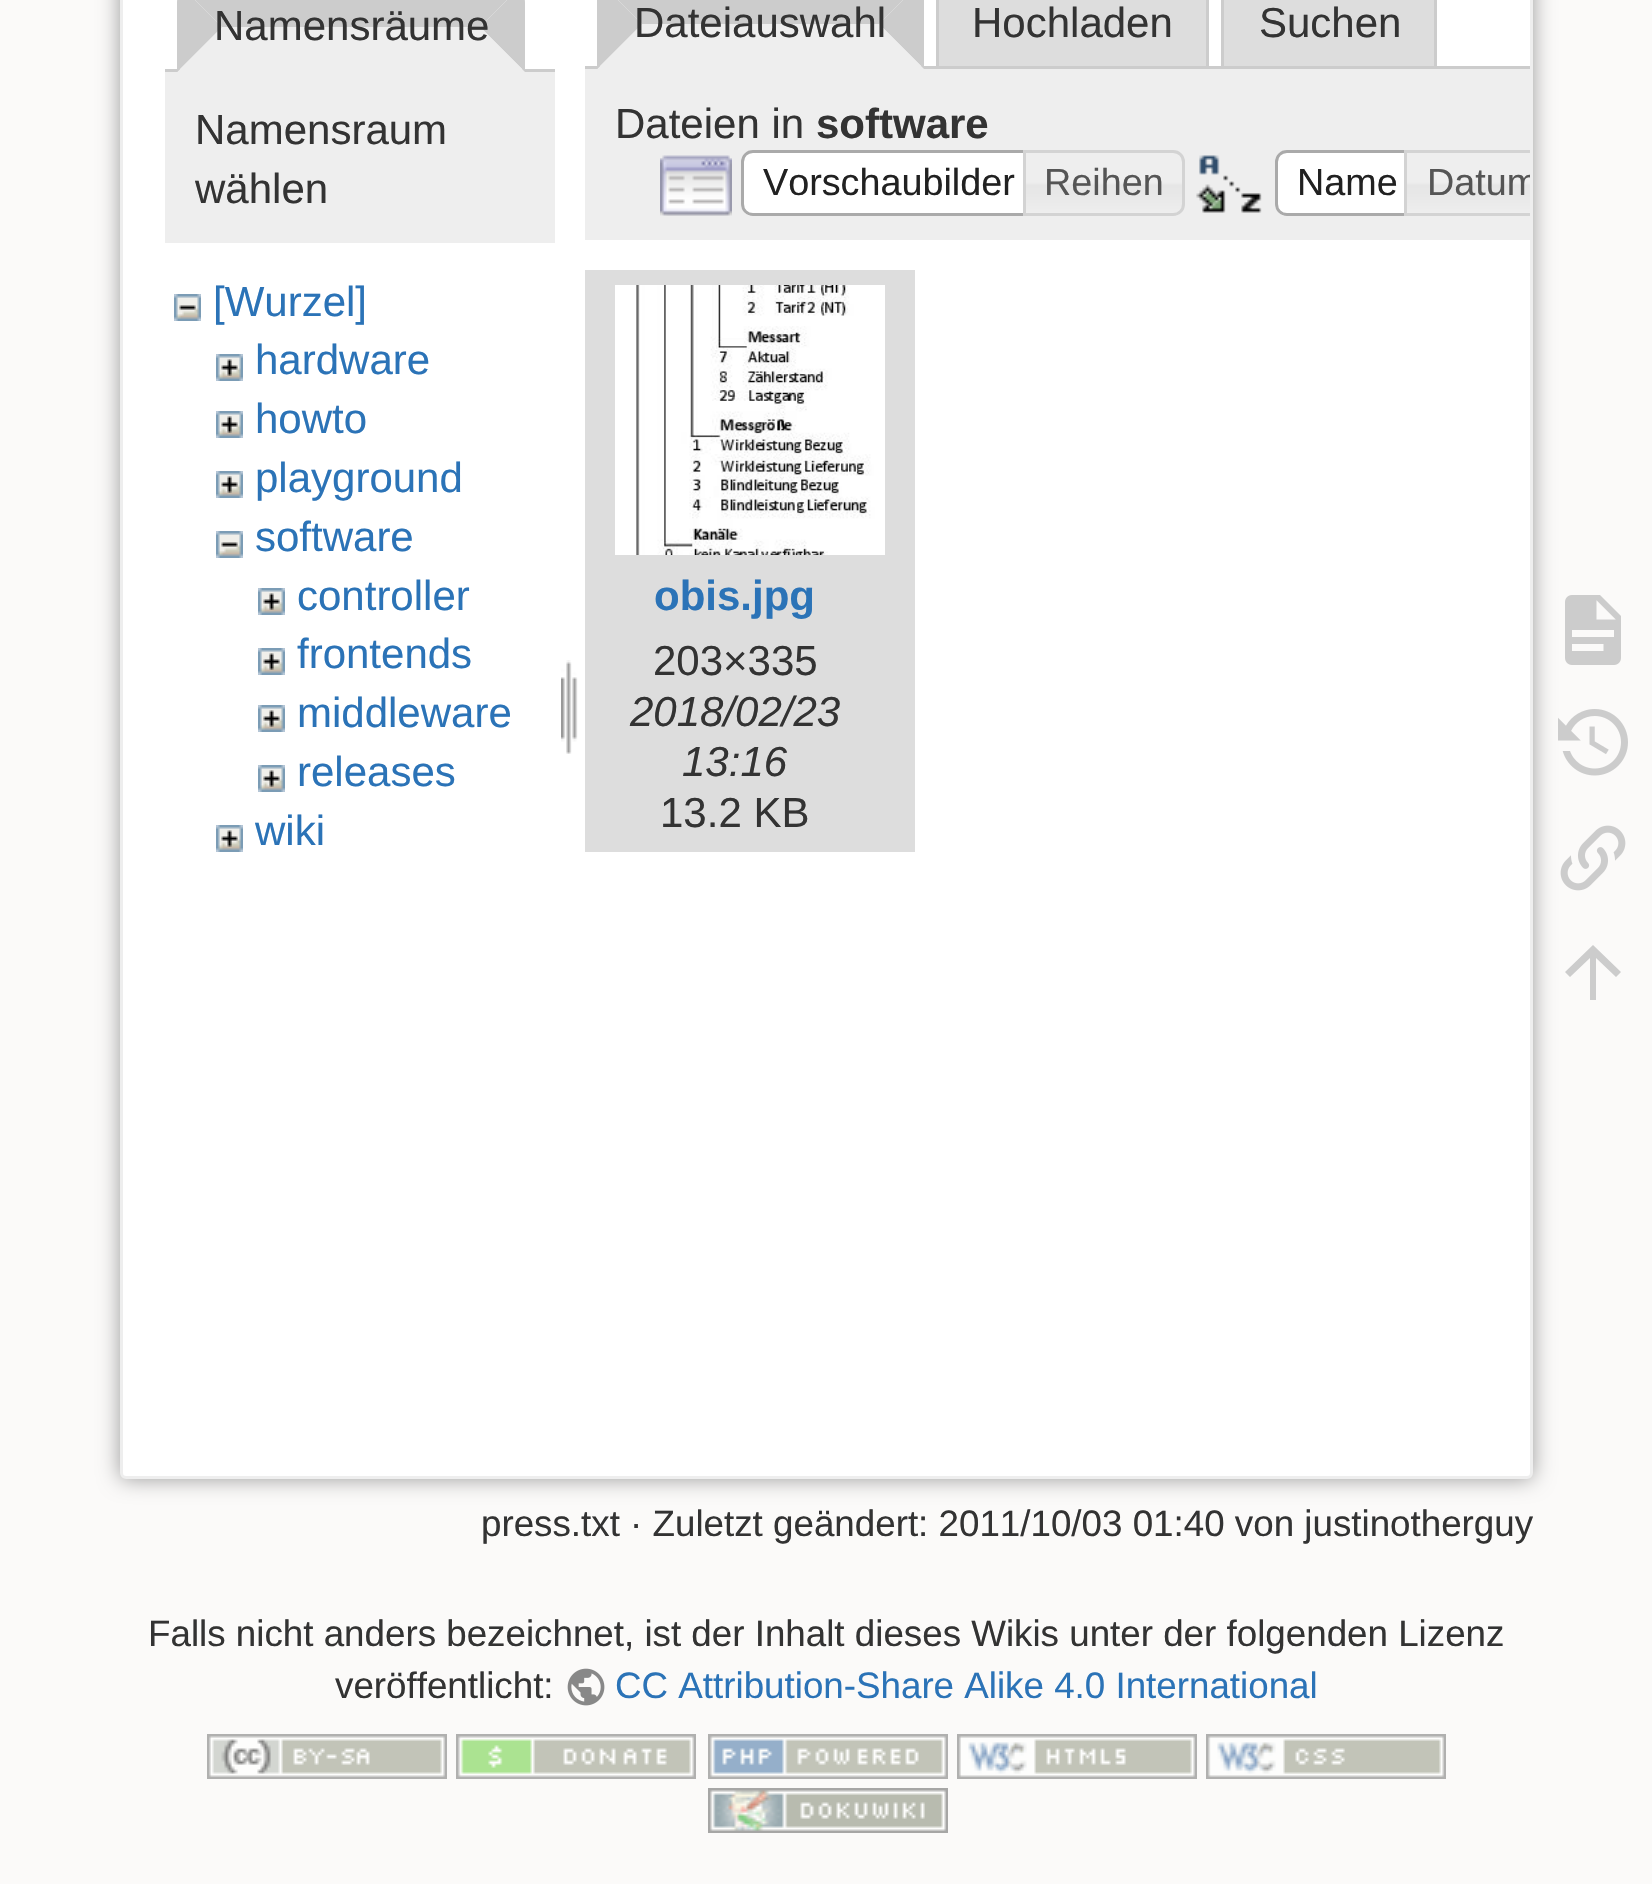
#include "include/core/SkBlurTypes.h"
#include "include/core/SkCanvas.h"
#include "include/core/SkData.h"
#include "include/core/SkFont.h"
#include "include/core/SkFontMgr.h"
#include "include/core/SkImage.h"
#include "include/core/SkMaskFilter.h"
#include "include/core/SkPaint.h"
#include "include/core/SkPathBuilder.h"
#include "include/core/SkTextBlob.h"
#include "include/effects/SkDashPathEffect.h"
#include "include/effects/SkGradientShader.h"
#include "include/utils/SkParsePath.h"

extern sk_sp<SkFontMgr> fontMgr;

void draw(SkCanvas* canvas) {
  SkPaint p;
  p.setAntiAlias(true);
  canvas->clear(SkColorSetRGB(251, 250, 249));
  p.setColor(SkColorSetRGB(153, 153, 153));
  p.setMaskFilter(SkMaskFilter::MakeBlur(kNormal_SkBlurStyle, 10.5f));
  canvas->drawRoundRect(SkRect::MakeLTRB(120, -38, 1533, 1479), 6, 6, p);
  p.setMaskFilter(nullptr);
  p.setColor(SK_ColorWHITE);
  canvas->drawRoundRect(SkRect::MakeLTRB(121.5f, -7.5f, 1531.5f, 1477.5f), 4.5f, 4.5f, p);
  p.setStyle(SkPaint::kStroke_Style);
  p.setStrokeWidth(3);
  p.setColor(SkColorSetRGB(238, 238, 238));
  canvas->drawRoundRect(SkRect::MakeLTRB(121.5f, -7.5f, 1531.5f, 1477.5f), 4.5f, 4.5f, p);
  p.setStyle(SkPaint::kFill_Style);
  p.setColor(SkColorSetRGB(204, 204, 204));
  canvas->drawPath(SkPathBuilder().moveTo(198, -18).lineTo(504, -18).cubicTo(510, -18, 515, -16, 519, -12).lineTo(480, 27).lineTo(222, 27).lineTo(183, -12).cubicTo(187, -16, 192, -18, 198, -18).close().detach(), p);
  canvas->drawRect(SkRect::MakeLTRB(165, 69, 555, 72), p);
  canvas->drawPath(SkPathBuilder().moveTo(519, -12).lineTo(480, 27).lineTo(525, 72).lineTo(525, 3).cubicTo(525, -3, 523, -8, 519, -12).close().detach(), p);
  p.setColor(SkColorSetRGB(238, 238, 238));
  canvas->drawPath(SkPathBuilder().moveTo(525, 72).lineTo(480, 27).lineTo(222, 27).lineTo(177, 72).close().detach(), p);
  p.setColor(SkColorSetRGB(204, 204, 204));
  canvas->drawPath(SkPathBuilder().moveTo(177, 72).lineTo(177, 3).cubicTo(177, -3, 179, -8, 183, -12).lineTo(222, 27).close().detach(), p);
  p.setColor(SkColorSetRGB(238, 238, 238));
  canvas->drawRect(SkRect::MakeLTRB(165, 72, 555, 243), p);
  canvas->drawImageRect(SkImages::DeferredFromEncodedData(SkData::MakeFromFileName("images/1.png")), SkRect::MakeLTRB(174, 294, 201, 321), SkSamplingOptions());
  canvas->drawImageRect(SkImages::DeferredFromEncodedData(SkData::MakeFromFileName("images/2.png")), SkRect::MakeLTRB(216, 354, 243, 381), SkSamplingOptions());
  canvas->drawImageRect(SkImages::DeferredFromEncodedData(SkData::MakeFromFileName("images/2.png")), SkRect::MakeLTRB(216, 411, 243, 438), SkSamplingOptions());
  canvas->drawImageRect(SkImages::DeferredFromEncodedData(SkData::MakeFromFileName("images/2.png")), SkRect::MakeLTRB(216, 471, 243, 498), SkSamplingOptions());
  canvas->drawImageRect(SkImages::DeferredFromEncodedData(SkData::MakeFromFileName("images/1.png")), SkRect::MakeLTRB(216, 531, 243, 558), SkSamplingOptions());
  canvas->drawImageRect(SkImages::DeferredFromEncodedData(SkData::MakeFromFileName("images/2.png")), SkRect::MakeLTRB(258, 588, 285, 615), SkSamplingOptions());
  canvas->drawImageRect(SkImages::DeferredFromEncodedData(SkData::MakeFromFileName("images/2.png")), SkRect::MakeLTRB(258, 648, 285, 675), SkSamplingOptions());
  canvas->drawImageRect(SkImages::DeferredFromEncodedData(SkData::MakeFromFileName("images/2.png")), SkRect::MakeLTRB(258, 705, 285, 732), SkSamplingOptions());
  canvas->drawImageRect(SkImages::DeferredFromEncodedData(SkData::MakeFromFileName("images/2.png")), SkRect::MakeLTRB(258, 765, 285, 792), SkSamplingOptions());
  canvas->drawImageRect(SkImages::DeferredFromEncodedData(SkData::MakeFromFileName("images/2.png")), SkRect::MakeLTRB(216, 825, 243, 852), SkSamplingOptions());
  canvas->drawImageRect(SkImages::DeferredFromEncodedData(SkData::MakeFromFileName("images/3.png")), SkRect::MakeLTRB(561, 660, 578, 754), SkSamplingOptions());
  p.setColor(SkColorSetRGB(204, 204, 204));
  canvas->drawPath(SkPathBuilder().moveTo(618, -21).lineTo(903, -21).cubicTo(909, -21, 914, -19, 918, -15).lineTo(879, 24).lineTo(642, 24).lineTo(603, -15).cubicTo(607, -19, 612, -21, 618, -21).close().detach(), p);
  p.setColor(SkColorSetRGB(221, 221, 221));
  canvas->drawRect(SkRect::MakeLTRB(937.5f, -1.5f, 1207.5f, 67.5f), p);
  p.setStyle(SkPaint::kStroke_Style);
  p.setColor(SkColorSetRGB(204, 204, 204));
  canvas->drawRect(SkRect::MakeLTRB(937.5f, -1.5f, 1207.5f, 67.5f), p);
  p.setStyle(SkPaint::kFill_Style);
  p.setColor(SkColorSetRGB(221, 221, 221));
  canvas->drawRect(SkRect::MakeLTRB(1222.5f, -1.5f, 1435.5f, 67.5f), p);
  p.setStyle(SkPaint::kStroke_Style);
  p.setColor(SkColorSetRGB(204, 204, 204));
  canvas->drawRect(SkRect::MakeLTRB(1222.5f, -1.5f, 1435.5f, 67.5f), p);
  p.setStyle(SkPaint::kFill_Style);
  canvas->drawRect(SkRect::MakeLTRB(585, 66, 1530, 69), p);
  canvas->drawPath(SkPathBuilder().moveTo(918, -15).lineTo(879, 24).lineTo(924, 69).lineTo(924, 0).cubicTo(924, -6, 922, -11, 918, -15).close().detach(), p);
  p.setColor(SkColorSetRGB(238, 238, 238));
  canvas->drawPath(SkPathBuilder().moveTo(924, 69).lineTo(879, 24).lineTo(642, 24).lineTo(597, 69).close().detach(), p);
  p.setColor(SkColorSetRGB(204, 204, 204));
  canvas->drawPath(SkPathBuilder().moveTo(597, 69).lineTo(597, 0).cubicTo(597, -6, 599, -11, 603, -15).lineTo(642, 24).close().detach(), p);
  p.setColor(SkColorSetRGB(238, 238, 238));
  canvas->drawRect(SkRect::MakeLTRB(585, 69, 1530, 240), p);
  canvas->drawImageRect(SkImages::DeferredFromEncodedData(SkData::MakeFromFileName("images/4.png")), SkRect::MakeLTRB(660, 155, 732, 216), SkSamplingOptions());
  p.setColor(SK_ColorWHITE);
  canvas->drawPath(SkPathBuilder().moveTo(753, 150).lineTo(1038, 150).lineTo(1038, 216).lineTo(753, 216).cubicTo(746.5f, 216, 741, 210.5f, 741, 204).lineTo(741, 162).cubicTo(741, 155.5f, 746.5f, 150, 753, 150).close().detach(), p);
  canvas->drawImageRect(SkImages::DeferredFromEncodedData(SkData::MakeFromFileName("images/5.png")), SkRect::MakeLTRB(741, 153, 750, 216), SkSamplingOptions());
  p.setStyle(SkPaint::kStroke_Style);
  p.setColor(SkColorSetRGB(170, 170, 170));
  canvas->drawPath(SkPathBuilder().moveTo(753, 151.5f).lineTo(1036.5f, 151.5f).lineTo(1036.5f, 214.5f).lineTo(753, 214.5f).cubicTo(747, 214.5f, 742.5f, 210, 742.5f, 204).lineTo(742.5f, 162).cubicTo(742.5f, 156, 747, 151.5f, 753, 151.5f).close().detach(), p);
  canvas->drawImageRect(SkImages::DeferredFromEncodedData(SkData::MakeFromFileName("images/6.png")), SkRect::MakeLTRB(1026, 150, 1185, 216), SkSamplingOptions());
  p.setColor(SkColorSetRGB(211, 211, 211));
  canvas->drawPath(SkPathBuilder().moveTo(1024.5f, 151.5f).lineTo(1173, 151.5f).cubicTo(1179, 151.5f, 1183.5f, 156, 1183.5f, 162).lineTo(1183.5f, 204).cubicTo(1183.5f, 210, 1179, 214.5f, 1173, 214.5f).lineTo(1024.5f, 214.5f).close().detach(), p);
  canvas->drawImageRect(SkImages::DeferredFromEncodedData(SkData::MakeFromFileName("images/7.png")), SkRect::MakeLTRB(1196, 155, 1262, 213), SkSamplingOptions());
  p.setStyle(SkPaint::kFill_Style);
  p.setColor(SK_ColorWHITE);
  canvas->drawPath(SkPathBuilder().moveTo(1287, 150).lineTo(1419, 150).lineTo(1419, 216).lineTo(1287, 216).cubicTo(1280.5f, 216, 1275, 210.5f, 1275, 204).lineTo(1275, 162).cubicTo(1275, 155.5f, 1280.5f, 150, 1287, 150).close().detach(), p);
  canvas->drawImageRect(SkImages::DeferredFromEncodedData(SkData::MakeFromFileName("images/5.png")), SkRect::MakeLTRB(1275, 153, 1284, 216), SkSamplingOptions());
  p.setStyle(SkPaint::kStroke_Style);
  p.setColor(SkColorSetRGB(170, 170, 170));
  canvas->drawPath(SkPathBuilder().moveTo(1287, 151.5f).lineTo(1417.5f, 151.5f).lineTo(1417.5f, 214.5f).lineTo(1287, 214.5f).cubicTo(1281, 214.5f, 1276.5f, 210, 1276.5f, 204).lineTo(1276.5f, 162).cubicTo(1276.5f, 156, 1281, 151.5f, 1287, 151.5f).close().detach(), p);
  canvas->drawImageRect(SkImages::DeferredFromEncodedData(SkData::MakeFromFileName("images/8.png")), SkRect::MakeLTRB(1407, 153, 1530, 213), SkSamplingOptions());
  p.setStyle(SkPaint::kFill_Style);
  p.setColor(SkColorSetRGB(211, 211, 211));
  canvas->drawPath(SkPathBuilder().moveTo(1404, 150).lineTo(1404, 216).lineTo(1530, 216).lineTo(1530, 213).lineTo(1407, 213).lineTo(1407, 153).lineTo(1530, 153).lineTo(1530, 150).close().detach(), p);
  p.setColor(SkColorSetRGB(221, 221, 221));
  canvas->drawRect(SkRect::MakeLTRB(585, 270, 915, 852), p);
  canvas->drawImageRect(SkImages::DeferredFromEncodedData(SkData::MakeFromFileName("images/9.png")), SkRect::MakeLTRB(615, 285, 885, 555), SkSamplingOptions());
  canvas->drawImageRect(SkImages::DeferredFromEncodedData(SkData::MakeFromFileName("images/10.png")), SkRect::MakeLTRB(1565, 595, 1621, 665), SkSamplingOptions());
  canvas->drawImageRect(SkImages::DeferredFromEncodedData(SkData::MakeFromFileName("images/11.png")), SkRect::MakeLTRB(1558, 709, 1628, 776), SkSamplingOptions());
  canvas->drawImageRect(SkImages::DeferredFromEncodedData(SkData::MakeFromFileName("images/12.png")), SkRect::MakeLTRB(1560, 825, 1626, 891), SkSamplingOptions());
  p.setColor(SkColorSetRGB(204, 204, 204));
  canvas->drawPath(SkPathBuilder().moveTo(1596, 1000).lineTo(1590, 1000).lineTo(1590, 958).lineTo(1570, 977).lineTo(1565, 972).lineTo(1593, 945).lineTo(1621, 972).lineTo(1616, 977).lineTo(1596, 958).close().detach(), p);
  canvas->drawImageRect(SkImages::DeferredFromEncodedData(SkData::MakeFromFileName("images/13.png")), SkRect::MakeLTRB(567, 1668, 605, 1706), SkSamplingOptions());
  canvas->drawImageRect(SkImages::DeferredFromEncodedData(SkData::MakeFromFileName("images/14.png")), SkRect::MakeLTRB(207, 1734, 447, 1779), SkSamplingOptions());
  canvas->drawImageRect(SkImages::DeferredFromEncodedData(SkData::MakeFromFileName("images/15.png")), SkRect::MakeLTRB(456, 1734, 696, 1779), SkSamplingOptions());
  canvas->drawImageRect(SkImages::DeferredFromEncodedData(SkData::MakeFromFileName("images/16.png")), SkRect::MakeLTRB(708, 1734, 948, 1779), SkSamplingOptions());
  canvas->drawImageRect(SkImages::DeferredFromEncodedData(SkData::MakeFromFileName("images/17.png")), SkRect::MakeLTRB(957, 1734, 1197, 1779), SkSamplingOptions());
  canvas->drawImageRect(SkImages::DeferredFromEncodedData(SkData::MakeFromFileName("images/18.png")), SkRect::MakeLTRB(1206, 1734, 1446, 1779), SkSamplingOptions());
  canvas->drawImageRect(SkImages::DeferredFromEncodedData(SkData::MakeFromFileName("images/19.png")), SkRect::MakeLTRB(708, 1788, 948, 1833), SkSamplingOptions());
  SkFont font1(fontMgr->matchFamilyStyle("Liberation Sans", SkFontStyle::Normal()), 42);
  font1.setSubpixel(true);
  p.setColor(SkColorSetRGB(51, 51, 51));
  canvas->drawString("Namensräume", 214, 40, font1, p);
  canvas->drawString("Namensraum", 195, 144, font1, p);
  canvas->drawString("wählen", 195, 203, font1, p);
  p.setColor(SkColorSetRGB(43, 115, 183));
  canvas->drawString("[Wurzel]", 213, 316, font1, p);
  canvas->drawString("hardware", 255, 374, font1, p);
  canvas->drawString("howto", 255, 433, font1, p);
  canvas->drawString("playground", 255, 492, font1, p);
  canvas->drawString("software", 255, 551, font1, p);
  canvas->drawString("controller", 297, 610, font1, p);
  canvas->drawString("frontends", 297, 668, font1, p);
  canvas->drawString("middleware", 297, 727, font1, p);
  canvas->drawString("releases", 297, 786, font1, p);
  canvas->drawString("wiki", 255, 845, font1, p);
  p.setColor(SkColorSetRGB(51, 51, 51));
  canvas->drawString("Dateiauswahl", 634, 37, font1, p);
  canvas->drawString("Hochladen", 972, 37, font1, p);
  canvas->drawString("Suchen", 1259, 37, font1, p);
  canvas->drawString("Dateien in", 615, 138, font1, p);
  SkFont font2(fontMgr->matchFamilyStyle("Liberation Sans", SkFontStyle::Bold()), 42);
  font2.setSubpixel(true);
  canvas->drawString("software", 816, 138, font2, p);
  SkFont font3(fontMgr->matchFamilyStyle("Liberation Sans", SkFontStyle::Normal()), 37.75f);
  font3.setSubpixel(true);
  p.setColor(SkColorSetRGB(33, 33, 33));
  canvas->drawString("Vorschaubilder", 763, 195, font3, p);
  p.setColor(SkColorSetRGB(85, 85, 85));
  canvas->drawString("Reihen", 1044, 195, font3, p);
  p.setColor(SkColorSetRGB(33, 33, 33));
  canvas->drawString("Name", 1297, 195, font3, p);
  canvas->save();
  canvas->clipPath(SkPathBuilder().moveTo(126, -207).lineTo(1527, -207).cubicTo(1528.5f, -207, 1530, -205.5f, 1530, -204).lineTo(1530, 1473).cubicTo(1530, 1474.5f, 1528.5f, 1476, 1527, 1476).lineTo(126, 1476).cubicTo(124.5f, 1476, 123, 1474.5f, 123, 1473).lineTo(123, -204).cubicTo(123, -205.5f, 124.5f, -207, 126, -207).close().detach(), true);
  p.setColor(SkColorSetRGB(85, 85, 85));
  canvas->drawString("Datum", 1427, 195, font3, p);
  canvas->restore();
  p.setColor(SkColorSetRGB(43, 115, 183));
  canvas->drawString("obis.jpg", 654, 610, font2, p);
  p.setColor(SkColorSetRGB(51, 51, 51));
  canvas->drawString("203×335", 653, 675, font1, p);
  SkFont font4(fontMgr->matchFamilyStyle("Liberation Sans", SkFontStyle::Italic()), 42);
  font4.setSubpixel(true);
  canvas->drawString("2018/02/23", 630, 726, font4, p);
  canvas->drawString("13:16", 682, 776, font4, p);
  canvas->drawString("13.2 KB", 660, 827, font1, p);
  SkFont font5(fontMgr->matchFamilyStyle("Liberation Sans", SkFontStyle::Normal()), 36.75f);
  font5.setSubpixel(true);
  canvas->drawString("press.txt · Zuletzt geändert: 2011/10/03 01:40 von justinotherguy", 481, 1536, font5, p);
  canvas->drawString("Falls nicht anders bezeichnet, ist der Inhalt dieses Wikis unter der folgenden Lizenz", 148, 1646, font5, p);
  canvas->drawString("veröffentlicht:", 335, 1698, font5, p);
  p.setColor(SkColorSetRGB(43, 115, 183));
  canvas->drawString("CC Attribution-Share Alike 4.0 International", 615, 1698, font5, p);
}
